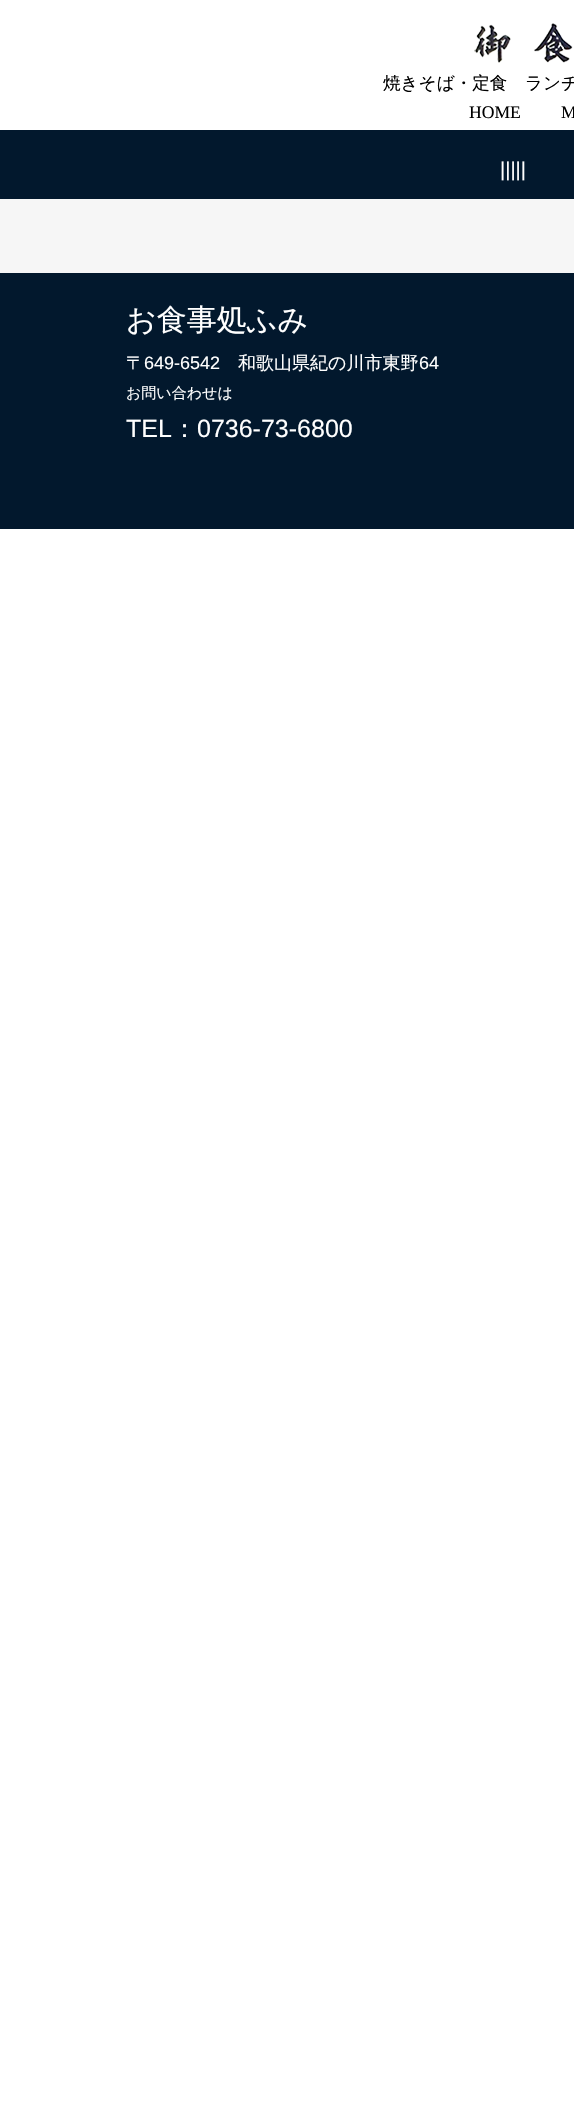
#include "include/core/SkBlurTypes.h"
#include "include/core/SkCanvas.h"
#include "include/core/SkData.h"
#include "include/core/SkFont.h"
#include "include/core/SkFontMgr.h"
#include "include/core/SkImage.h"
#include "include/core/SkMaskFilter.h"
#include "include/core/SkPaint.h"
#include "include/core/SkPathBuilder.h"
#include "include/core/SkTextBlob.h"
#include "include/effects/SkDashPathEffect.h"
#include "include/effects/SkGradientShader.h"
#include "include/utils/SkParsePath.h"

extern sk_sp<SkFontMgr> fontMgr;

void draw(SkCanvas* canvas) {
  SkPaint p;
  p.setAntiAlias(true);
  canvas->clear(SK_ColorWHITE);
  canvas->drawImageRect(SkImages::DeferredFromEncodedData(SkData::MakeFromFileName("images/1.png")), SkRect::MakeLTRB(474, 23, 573, 63), SkSamplingOptions());
  p.setColor(SkColorSetRGB(2, 24, 45));
  canvas->drawRect(SkRect::MakeLTRB(0, 130, 574, 199), p);
  p.setColor(SkColorSetRGB(246, 246, 246));
  canvas->drawRect(SkRect::MakeLTRB(0, 199, 574, 273), p);
  p.setColor(SkColorSetRGB(2, 24, 45));
  canvas->drawRect(SkRect::MakeLTRB(0, 273, 574, 529), p);
  SkFont font1(fontMgr->matchFamilyStyle("WenQuanYi Zen Hei", SkFontStyle(500, SkFontStyle::kNormal_Width, SkFontStyle::kUpright_Slant)), 17.6f);
  font1.setSubpixel(true);
  p.setColor(SK_ColorBLACK);
  canvas->drawString("焼きそば・定食　ランチ", 383, 89, font1, p);
  SkFont font2(fontMgr->matchFamilyStyle("Liberation Serif", SkFontStyle::Normal()), 17.6f);
  font2.setSubpixel(true);
  canvas->drawString("HOME", 469, 118, font2, p);
  canvas->drawString("M", 561, 118, font2, p);
  SkFont font3(fontMgr->matchFamilyStyle("Liberation Sans", SkFontStyle::Normal()), 20);
  font3.setSubpixel(true);
  p.setColor(SK_ColorWHITE);
  canvas->drawString("|||||", 500, 176, font3, p);
  SkFont font4(fontMgr->matchFamilyStyle("WenQuanYi Zen Hei", SkFontStyle(500, SkFontStyle::kNormal_Width, SkFontStyle::kUpright_Slant)), 30);
  font4.setSubpixel(true);
  canvas->drawString("お食事処ふみ", 126, 330, font4, p);
  SkFont font5(fontMgr->matchFamilyStyle("WenQuanYi Zen Hei", SkFontStyle(500, SkFontStyle::kNormal_Width, SkFontStyle::kUpright_Slant)), 18);
  font5.setSubpixel(true);
  canvas->drawString("〒", 126, 369, font5, p);
  SkFont font6(fontMgr->matchFamilyStyle("Liberation Sans", SkFontStyle::Normal()), 18);
  font6.setSubpixel(true);
  canvas->drawString("649-6542", 144, 369, font6, p);
  canvas->drawString("和歌山県紀の川市東野", 238, 369, font5, p);
  canvas->drawString("64", 419, 369, font6, p);
  SkFont font7(fontMgr->matchFamilyStyle("WenQuanYi Zen Hei", SkFontStyle(500, SkFontStyle::kNormal_Width, SkFontStyle::kUpright_Slant)), 15);
  font7.setSubpixel(true);
  canvas->drawString("お問い合わせは", 126, 398, font7, p);
  SkFont font8(fontMgr->matchFamilyStyle("Liberation Sans", SkFontStyle::Normal()), 25);
  font8.setSubpixel(true);
  canvas->drawString("TEL", 126, 437, font8, p);
  SkFont font9(fontMgr->matchFamilyStyle("WenQuanYi Zen Hei", SkFontStyle(500, SkFontStyle::kNormal_Width, SkFontStyle::kUpright_Slant)), 25);
  font9.setSubpixel(true);
  canvas->drawString("：", 172, 437, font9, p);
  canvas->drawString("0736-73-6800", 197, 437, font8, p);
}
